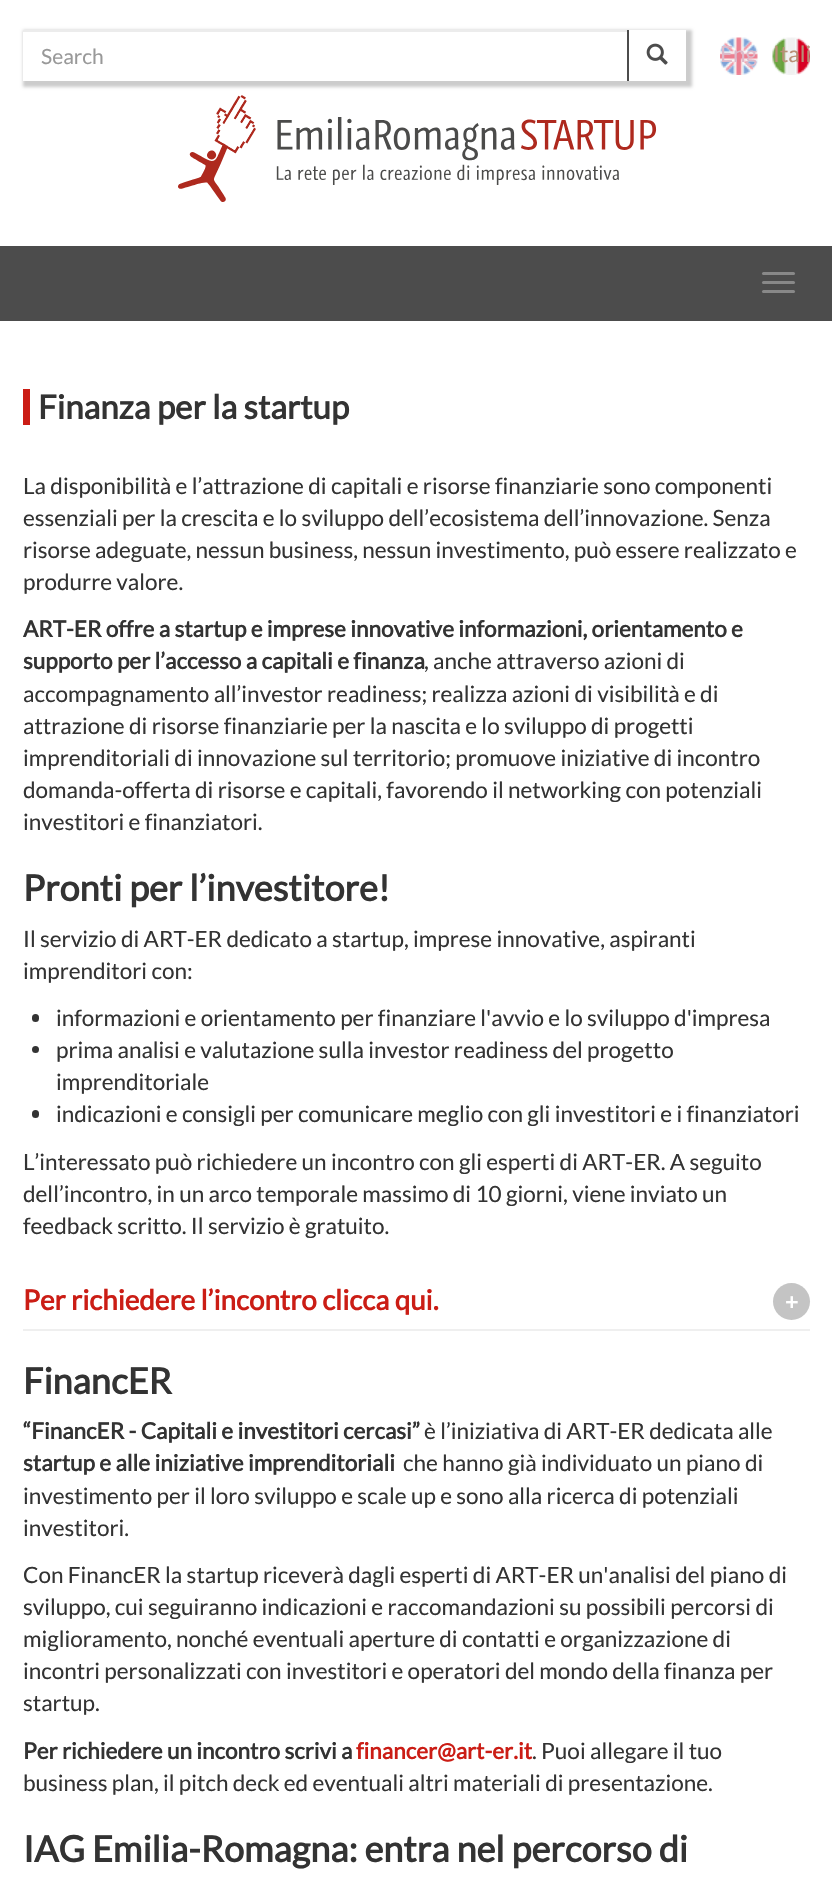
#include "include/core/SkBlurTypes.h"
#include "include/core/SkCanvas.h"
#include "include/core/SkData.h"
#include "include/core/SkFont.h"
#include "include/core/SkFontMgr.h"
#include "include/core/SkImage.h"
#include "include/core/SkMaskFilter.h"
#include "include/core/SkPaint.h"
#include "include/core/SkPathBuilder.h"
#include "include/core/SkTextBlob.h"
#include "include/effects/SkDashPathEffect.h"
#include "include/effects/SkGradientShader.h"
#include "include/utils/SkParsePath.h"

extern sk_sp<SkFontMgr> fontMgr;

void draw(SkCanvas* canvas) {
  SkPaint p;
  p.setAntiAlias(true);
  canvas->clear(SK_ColorWHITE);
  canvas->save();
  canvas->clipPath(SkPathBuilder(SkPathFillType::kEvenOdd).moveTo(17, 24).lineTo(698, 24).lineTo(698, 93).lineTo(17, 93).close().moveTo(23, 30).lineTo(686, 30).lineTo(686, 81).lineTo(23, 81).close().detach(), true);
  p.setColor(SkColorSetRGB(204, 204, 204));
  p.setMaskFilter(SkMaskFilter::MakeBlur(kNormal_SkBlurStyle, 1.5f));
  canvas->drawRect(SkRect::MakeLTRB(23, 30, 692, 87), p);
  p.setMaskFilter(nullptr);
  canvas->restore();
  p.setColor(SkColorSetRGB(236, 236, 236));
  canvas->drawRect(SkRect::MakeLTRB(23, 30, 627, 32), p);
  p.setColor(SkColorSetRGB(76, 76, 76));
  canvas->drawRect(SkRect::MakeLTRB(627, 30, 629, 81), p);
  canvas->drawImageRect(SkImages::DeferredFromEncodedData(SkData::MakeFromFileName("images/1.png")), SkRect::MakeLTRB(646, 43, 668, 65), SkSamplingOptions());
  canvas->drawImageRect(SkImages::DeferredFromEncodedData(SkData::MakeFromFileName("images/2.png")), SkRect::MakeLTRB(720, 37, 758, 75), SkSamplingOptions());
  canvas->drawImageRect(SkImages::DeferredFromEncodedData(SkData::MakeFromFileName("images/3.png")), SkRect::MakeLTRB(772, 37, 810, 75), SkSamplingOptions());
  canvas->drawImageRect(SkImages::DeferredFromEncodedData(SkData::MakeFromFileName("images/4.png")), SkRect::MakeLTRB(178, 95, 657, 202), SkSamplingOptions());
  canvas->drawRect(SkRect::MakeLTRB(0, 246, 832, 321), p);
  p.setColor(SkColorSetRGB(136, 136, 136));
  canvas->drawRoundRect(SkRect::MakeLTRB(762, 272, 795, 275), 1.5f, 1.5f, p);
  canvas->drawRoundRect(SkRect::MakeLTRB(762, 281, 795, 284), 1.5f, 1.5f, p);
  canvas->drawRoundRect(SkRect::MakeLTRB(762, 290, 795, 293), 1.5f, 1.5f, p);
  p.setColor(SkColorSetRGB(203, 29, 21));
  canvas->drawRect(SkRect::MakeLTRB(23, 389, 30, 425), p);
  p.setColor(SkColorSetRGB(51, 51, 51));
  canvas->drawRoundRect(SkRect::MakeLTRB(32, 1014, 39, 1022), 3.5f, 3.5f, p);
  canvas->drawCircle(35.5f, 1049.5f, 3.5f, p);
  canvas->drawRoundRect(SkRect::MakeLTRB(32, 1110, 39, 1118), 3.5f, 3.5f, p);
  p.setColor(SkColorSetRGB(239, 239, 239));
  canvas->drawRect(SkRect::MakeLTRB(23, 1329, 810, 1331), p);
  p.setColor(SkColorSetRGB(196, 196, 196));
  canvas->drawCircle(791.5f, 1301.5f, 18.5f, p);
  SkFont font1(fontMgr->matchFamilyStyle("Lato", SkFontStyle::Normal()), 21);
  font1.setSubpixel(true);
  p.setColor(SkColorSetRGB(153, 153, 153));
  canvas->drawString("Search", 41, 64, font1, p);
  SkFont font2(fontMgr->matchFamilyStyle("Lato", SkFontStyle::Normal()), 22.5f);
  font2.setSubpixel(true);
  p.setColor(SkColorSetRGB(221, 187, 203));
  canvas->drawString("Eng", 720, 62, font2, p);
  p.setColor(SkColorSetRGB(185, 143, 118));
  canvas->drawString("Itali", 773, 62, font2, p);
  SkFont font3(fontMgr->matchFamilyStyle("Lato", SkFontStyle::Bold()), 33);
  font3.setSubpixel(true);
  p.setColor(SkColorSetRGB(51, 51, 51));
  canvas->drawString("Finanza per la startup", 38, 419, font3, p);
  canvas->drawString("La disponibilità e l’attrazione di capitali e risorse finanziarie sono componenti", 23, 494, font2, p);
  canvas->drawString("essenziali per la crescita e lo sviluppo dell’ecosistema dell’innovazione. Senza", 23, 526, font2, p);
  canvas->drawString("risorse adeguate, nessun business, nessun investimento, può essere realizzato e", 23, 558, font2, p);
  canvas->drawString("produrre valore.", 23, 590, font2, p);
  SkFont font4(fontMgr->matchFamilyStyle("Lato", SkFontStyle::Bold()), 22.5f);
  font4.setSubpixel(true);
  canvas->drawString("ART-ER offre a startup e imprese innovative informazioni, orientamento e", 23, 637, font4, p);
  canvas->drawString("supporto per l’accesso a capitali e finanza", 23, 669, font4, p);
  canvas->drawString(", anche attraverso azioni di", 424, 669, font2, p);
  canvas->drawString("accompagnamento all’investor readiness; realizza azioni di visibilità e di", 23, 702, font2, p);
  canvas->drawString("attrazione di risorse finanziarie per la nascita e lo sviluppo di progetti", 23, 734, font2, p);
  canvas->drawString("imprenditoriali di innovazione sul territorio; promuove iniziative di incontro", 23, 766, font2, p);
  canvas->drawString("domanda-offerta di risorse e capitali, favorendo il networking con potenziali", 23, 798, font2, p);
  canvas->drawString("investitori e finanziatori.", 23, 830, font2, p);
  SkFont font5(fontMgr->matchFamilyStyle("Lato", SkFontStyle::Bold()), 36);
  font5.setSubpixel(true);
  canvas->drawString("Pronti per l’investitore!", 23, 901, font5, p);
  canvas->drawString("Il servizio di ART-ER dedicato a startup, imprese innovative, aspiranti", 23, 947, font2, p);
  canvas->drawString("imprenditori con:", 23, 979, font2, p);
  canvas->drawString("informazioni e orientamento per finanziare l'avvio e lo sviluppo d'impresa", 56, 1026, font2, p);
  canvas->drawString("prima analisi e valutazione sulla investor readiness del progetto", 56, 1058, font2, p);
  canvas->drawString("imprenditoriale", 56, 1090, font2, p);
  canvas->drawString("indicazioni e consigli per comunicare meglio con gli investitori e i finanziatori", 56, 1122, font2, p);
  canvas->drawString("L’interessato può richiedere un incontro con gli esperti di ART-ER. A seguito", 23, 1170, font2, p);
  canvas->drawString("dell’incontro, in un arco temporale massimo di 10 giorni, viene inviato un", 23, 1202, font2, p);
  canvas->drawString("feedback scritto. Il servizio è gratuito.", 23, 1234, font2, p);
  SkFont font6(fontMgr->matchFamilyStyle("Lato", SkFontStyle::Bold()), 27.75f);
  font6.setSubpixel(true);
  p.setColor(SkColorSetRGB(203, 29, 21));
  canvas->drawString("Per richiedere l’incontro clicca qui.", 23, 1310, font6, p);
  p.setColor(SK_ColorWHITE);
  canvas->drawString("+", 785, 1310, font4, p);
  p.setColor(SkColorSetRGB(51, 51, 51));
  canvas->drawString("FinancER", 23, 1394, font5, p);
  canvas->drawString("“FinancER - Capitali e investitori cercasi”", 23, 1439, font4, p);
  canvas->drawString("è l’iniziativa di ART-ER dedicata alle", 424, 1439, font2, p);
  canvas->drawString("startup e alle iniziative imprenditoriali", 23, 1471, font4, p);
  canvas->drawString("che hanno già individuato un piano di", 403, 1471, font2, p);
  canvas->drawString("investimento per il loro sviluppo e scale up e sono alla ricerca di potenziali", 23, 1504, font2, p);
  canvas->drawString("investitori.", 23, 1536, font2, p);
  canvas->drawString("Con FinancER la startup riceverà dagli esperti di ART-ER un'analisi del piano di", 23, 1583, font2, p);
  canvas->drawString("sviluppo, cui seguiranno indicazioni e raccomandazioni su possibili percorsi di", 23, 1615, font2, p);
  canvas->drawString("miglioramento, nonché eventuali aperture di contatti e organizzazione di", 23, 1647, font2, p);
  canvas->drawString("incontri personalizzati con investitori e operatori del mondo della finanza per", 23, 1679, font2, p);
  canvas->drawString("startup.", 23, 1711, font2, p);
  canvas->drawString("Per richiedere un incontro scrivi a", 23, 1759, font4, p);
  p.setColor(SkColorSetRGB(203, 29, 21));
  canvas->drawString("financer@art-er.it", 356, 1759, font4, p);
  p.setColor(SkColorSetRGB(51, 51, 51));
  canvas->drawString(". Puoi allegare il tuo", 532, 1759, font2, p);
  canvas->drawString("business plan, il pitch deck ed eventuali altri materiali di presentazione.", 23, 1791, font2, p);
  canvas->drawString("IAG Emilia-Romagna: entra nel percorso di", 23, 1862, font5, p);
}
